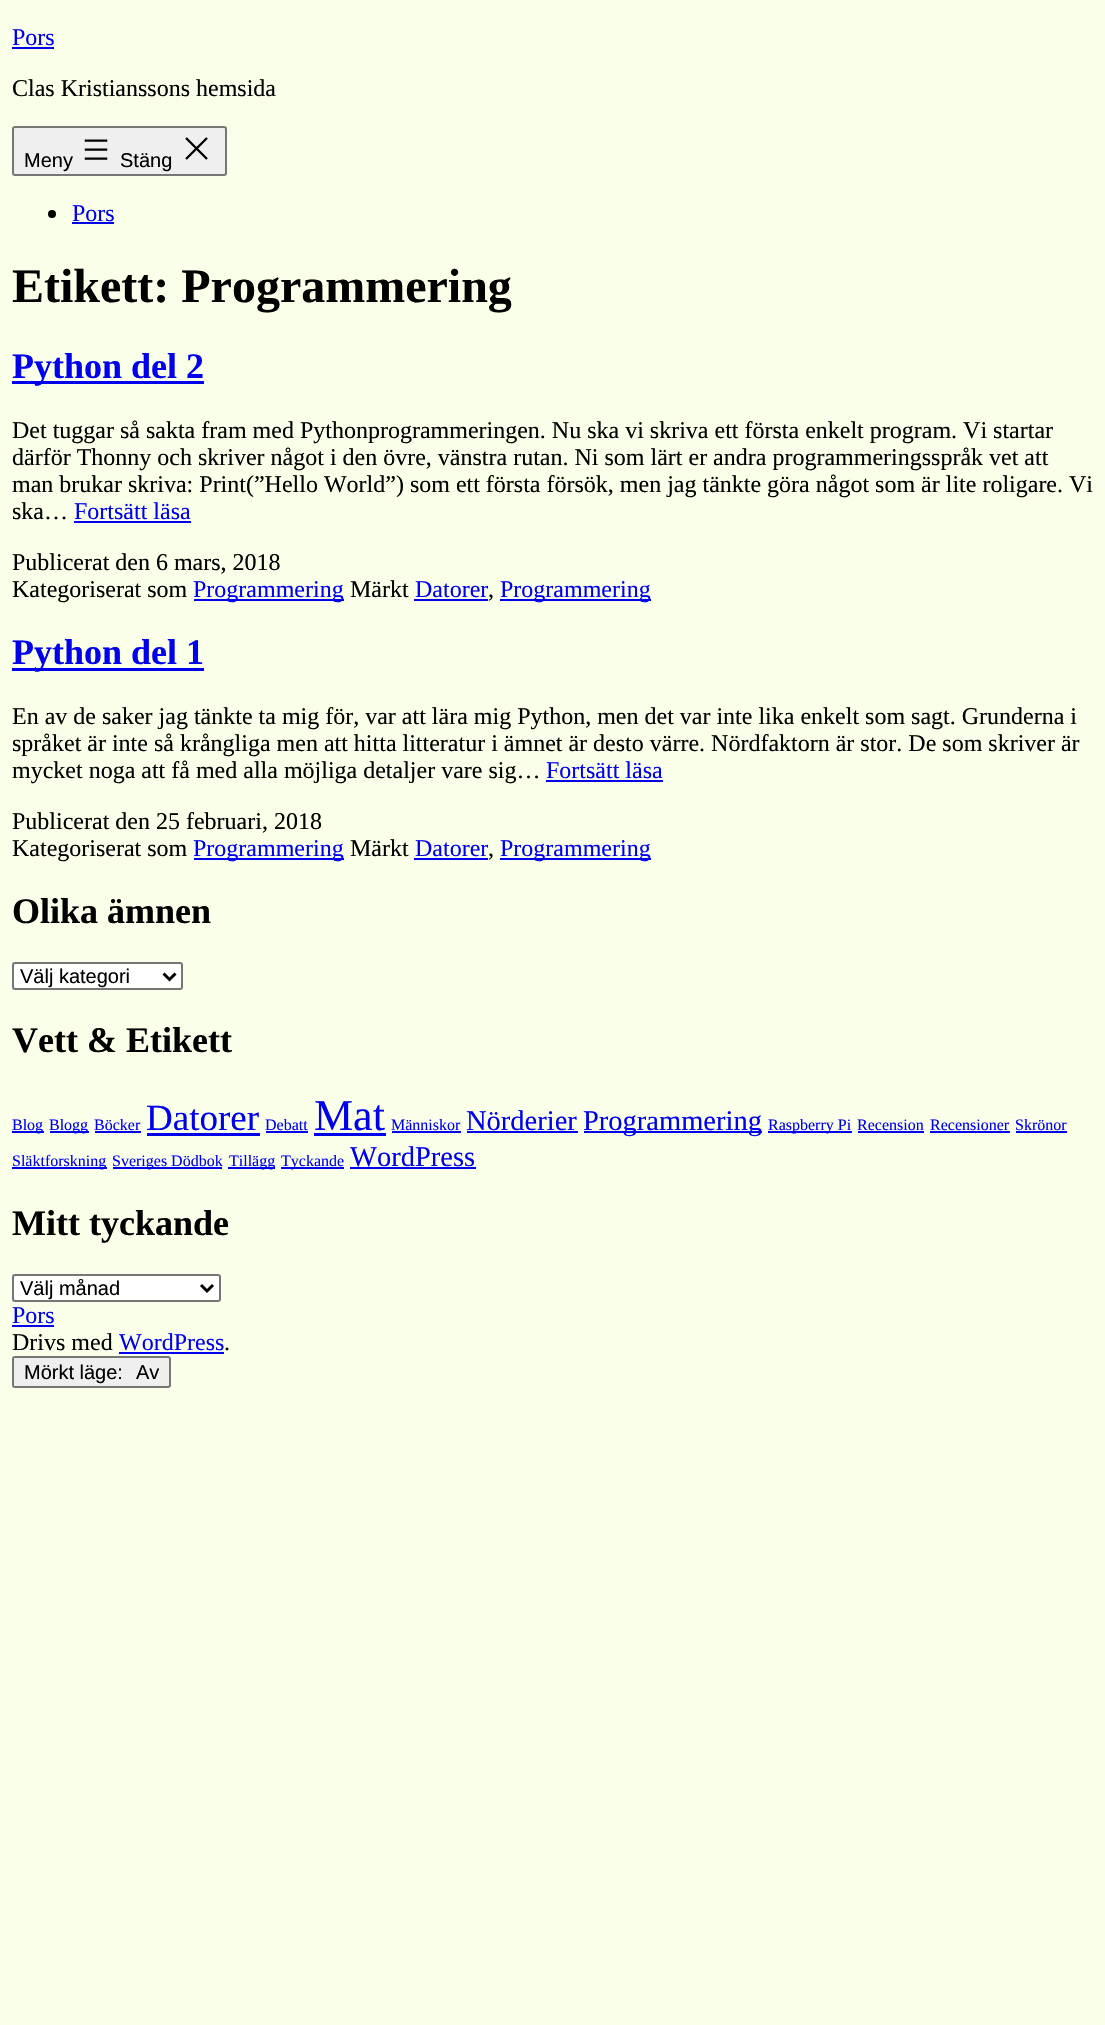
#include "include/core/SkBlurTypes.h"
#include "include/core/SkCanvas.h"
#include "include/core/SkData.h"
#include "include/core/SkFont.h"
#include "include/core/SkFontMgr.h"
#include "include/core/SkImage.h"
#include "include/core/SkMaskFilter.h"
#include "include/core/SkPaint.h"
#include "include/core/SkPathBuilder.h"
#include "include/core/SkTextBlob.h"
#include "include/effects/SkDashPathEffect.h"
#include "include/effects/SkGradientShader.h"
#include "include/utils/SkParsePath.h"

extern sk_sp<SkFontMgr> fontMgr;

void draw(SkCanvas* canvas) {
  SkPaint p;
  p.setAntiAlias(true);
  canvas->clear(SkColorSetRGB(249, 255, 232));
  p.setColor(SkColorSetRGB(0, 0, 238));
  canvas->drawRect(SkRect::MakeLTRB(12, 47, 54, 49), p);
  p.setColor(SkColorSetRGB(239, 239, 239));
  canvas->drawRoundRect(SkRect::MakeLTRB(13, 127, 226, 175), 2, 2, p);
  p.setStyle(SkPaint::kStroke_Style);
  p.setStrokeWidth(2);
  p.setColor(SkColorSetRGB(118, 118, 118));
  canvas->drawRoundRect(SkRect::MakeLTRB(13, 127, 226, 175), 2, 2, p);
  canvas->drawImageRect(SkImages::DeferredFromEncodedData(SkData::MakeFromFileName("images/1.png")), SkRect::MakeLTRB(84, 139, 108, 160), SkSamplingOptions());
  canvas->drawImageRect(SkImages::DeferredFromEncodedData(SkData::MakeFromFileName("images/2.png")), SkRect::MakeLTRB(185, 137, 208, 160), SkSamplingOptions());
  p.setStyle(SkPaint::kFill_Style);
  p.setColor(SK_ColorBLACK);
  canvas->drawCircle(52, 214, 4, p);
  p.setColor(SkColorSetRGB(0, 0, 238));
  canvas->drawRect(SkRect::MakeLTRB(72, 222, 114, 224), p);
  canvas->drawRect(SkRect::MakeLTRB(12, 381, 204, 384), p);
  canvas->drawRect(SkRect::MakeLTRB(74, 521, 191, 523), p);
  canvas->drawRect(SkRect::MakeLTRB(194, 599, 344, 601), p);
  canvas->drawRect(SkRect::MakeLTRB(414, 599, 488, 601), p);
  canvas->drawRect(SkRect::MakeLTRB(500, 599, 651, 601), p);
  canvas->drawRect(SkRect::MakeLTRB(12, 668, 204, 671), p);
  canvas->drawRect(SkRect::MakeLTRB(546, 780, 663, 782), p);
  canvas->drawRect(SkRect::MakeLTRB(194, 858, 344, 860), p);
  canvas->drawRect(SkRect::MakeLTRB(414, 858, 488, 860), p);
  canvas->drawRect(SkRect::MakeLTRB(500, 858, 651, 860), p);
  p.setColor(SK_ColorWHITE);
  canvas->drawRoundRect(SkRect::MakeLTRB(13, 963, 182, 989), 2, 2, p);
  p.setStyle(SkPaint::kStroke_Style);
  p.setColor(SkColorSetRGB(118, 118, 118));
  canvas->drawRoundRect(SkRect::MakeLTRB(13, 963, 182, 989), 2, 2, p);
  p.setStrokeWidth(3);
  p.setColor(SK_ColorBLACK);
  canvas->drawPath(SkPathBuilder().moveTo(163.5f, 973.5f).lineTo(169.5f, 979.5f).lineTo(175.5f, 973.5f).detach(), p);
  p.setStyle(SkPaint::kFill_Style);
  p.setColor(SkColorSetRGB(0, 0, 238));
  canvas->drawRect(SkRect::MakeLTRB(12, 1131, 44, 1133), p);
  canvas->drawRect(SkRect::MakeLTRB(50, 1131, 89, 1133), p);
  canvas->drawRect(SkRect::MakeLTRB(95, 1131, 141, 1133), p);
  canvas->drawRect(SkRect::MakeLTRB(147, 1133, 260, 1136), p);
  canvas->drawRect(SkRect::MakeLTRB(266, 1131, 308, 1133), p);
  canvas->drawRect(SkRect::MakeLTRB(314, 1133, 386, 1136), p);
  canvas->drawRect(SkRect::MakeLTRB(392, 1131, 461, 1133), p);
  canvas->drawRect(SkRect::MakeLTRB(467, 1131, 578, 1133), p);
  canvas->drawRect(SkRect::MakeLTRB(584, 1131, 762, 1133), p);
  canvas->drawRect(SkRect::MakeLTRB(768, 1131, 852, 1133), p);
  canvas->drawRect(SkRect::MakeLTRB(858, 1131, 924, 1133), p);
  canvas->drawRect(SkRect::MakeLTRB(930, 1131, 1010, 1133), p);
  canvas->drawRect(SkRect::MakeLTRB(1016, 1131, 1067, 1133), p);
  canvas->drawRect(SkRect::MakeLTRB(12, 1167, 107, 1169), p);
  canvas->drawRect(SkRect::MakeLTRB(113, 1167, 222, 1169), p);
  canvas->drawRect(SkRect::MakeLTRB(228, 1167, 275, 1169), p);
  canvas->drawRect(SkRect::MakeLTRB(281, 1167, 344, 1169), p);
  canvas->drawRect(SkRect::MakeLTRB(350, 1167, 476, 1169), p);
  p.setColor(SK_ColorWHITE);
  canvas->drawRoundRect(SkRect::MakeLTRB(13, 1275, 220, 1301), 2, 2, p);
  p.setStyle(SkPaint::kStroke_Style);
  p.setStrokeWidth(2);
  p.setColor(SkColorSetRGB(118, 118, 118));
  canvas->drawRoundRect(SkRect::MakeLTRB(13, 1275, 220, 1301), 2, 2, p);
  p.setStrokeWidth(3);
  p.setColor(SK_ColorBLACK);
  canvas->drawPath(SkPathBuilder().moveTo(201, 1285).lineTo(207, 1291).lineTo(213, 1285).detach(), p);
  p.setStyle(SkPaint::kFill_Style);
  p.setColor(SkColorSetRGB(0, 0, 238));
  canvas->drawRect(SkRect::MakeLTRB(12, 1325, 54, 1327), p);
  canvas->drawRect(SkRect::MakeLTRB(119, 1352, 224, 1354), p);
  p.setColor(SkColorSetRGB(239, 239, 239));
  canvas->drawRoundRect(SkRect::MakeLTRB(13, 1357, 170, 1387), 2, 2, p);
  p.setStyle(SkPaint::kStroke_Style);
  p.setStrokeWidth(2);
  p.setColor(SkColorSetRGB(118, 118, 118));
  canvas->drawRoundRect(SkRect::MakeLTRB(13, 1357, 170, 1387), 2, 2, p);
  SkFont font1(fontMgr->matchFamilyStyle("Liberation Serif", SkFontStyle::Normal()), 24);
  font1.setSubpixel(true);
  p.setStyle(SkPaint::kFill_Style);
  p.setColor(SkColorSetRGB(0, 0, 238));
  canvas->drawString("Pors", 12, 45, font1, p);
  p.setColor(SK_ColorBLACK);
  canvas->drawString("Clas Kristianssons hemsida", 12, 96, font1, p);
  SkFont font2(fontMgr->matchFamilyStyle("Liberation Sans", SkFontStyle::Normal()), 20);
  font2.setSubpixel(true);
  canvas->drawString("Meny", 24, 167, font2, p);
  canvas->drawString("Stäng", 120, 167, font2, p);
  p.setColor(SkColorSetRGB(0, 0, 238));
  canvas->drawString("Pors", 72, 221, font1, p);
  SkFont font3(fontMgr->matchFamilyStyle("Liberation Serif", SkFontStyle::Bold()), 48);
  font3.setSubpixel(true);
  p.setColor(SK_ColorBLACK);
  canvas->drawString("Etikett: Programmering", 12, 302, font3, p);
  SkFont font4(fontMgr->matchFamilyStyle("Liberation Serif", SkFontStyle::Bold()), 36);
  font4.setSubpixel(true);
  p.setColor(SkColorSetRGB(0, 0, 238));
  canvas->drawString("Python del 2", 12, 378, font4, p);
  p.setColor(SK_ColorBLACK);
  canvas->drawString("Det tuggar så sakta fram med Pythonprogrammeringen. Nu ska vi skriva ett första enkelt program. Vi startar", 12, 438, font1, p);
  canvas->drawString("därför Thonny och skriver något i den övre, vänstra rutan. Ni som lärt er andra programmeringsspråk vet att", 12, 465, font1, p);
  canvas->drawString("man brukar skriva: Print(”Hello World”) som ett första försök, men jag tänkte göra något som är lite roligare. Vi", 12, 492, font1, p);
  canvas->drawString("ska…", 12, 519, font1, p);
  p.setColor(SkColorSetRGB(0, 0, 238));
  canvas->drawString("Fortsätt läsa", 74, 519, font1, p);
  p.setColor(SK_ColorBLACK);
  canvas->drawString("Publicerat den 6 mars, 2018", 12, 570, font1, p);
  canvas->drawString("Kategoriserat som", 12, 597, font1, p);
  p.setColor(SkColorSetRGB(0, 0, 238));
  canvas->drawString("Programmering", 193, 597, font1, p);
  p.setColor(SK_ColorBLACK);
  canvas->drawString("Märkt", 350, 597, font1, p);
  p.setColor(SkColorSetRGB(0, 0, 238));
  canvas->drawString("Datorer", 415, 597, font1, p);
  p.setColor(SK_ColorBLACK);
  canvas->drawString(",", 488, 597, font1, p);
  p.setColor(SkColorSetRGB(0, 0, 238));
  canvas->drawString("Programmering", 500, 597, font1, p);
  canvas->drawString("Python del 1", 12, 664, font4, p);
  p.setColor(SK_ColorBLACK);
  canvas->drawString("En av de saker jag tänkte ta mig för, var att lära mig Python, men det var inte lika enkelt som sagt. Grunderna i", 12, 724, font1, p);
  canvas->drawString("språket är inte så krångliga men att hitta litteratur i ämnet är desto värre. Nördfaktorn är stor. De som skriver är", 12, 751, font1, p);
  canvas->drawString("mycket noga att få med alla möjliga detaljer vare sig…", 12, 778, font1, p);
  p.setColor(SkColorSetRGB(0, 0, 238));
  canvas->drawString("Fortsätt läsa", 546, 778, font1, p);
  p.setColor(SK_ColorBLACK);
  canvas->drawString("Publicerat den 25 februari, 2018", 12, 829, font1, p);
  canvas->drawString("Kategoriserat som", 12, 856, font1, p);
  p.setColor(SkColorSetRGB(0, 0, 238));
  canvas->drawString("Programmering", 193, 856, font1, p);
  p.setColor(SK_ColorBLACK);
  canvas->drawString("Märkt", 350, 856, font1, p);
  p.setColor(SkColorSetRGB(0, 0, 238));
  canvas->drawString("Datorer", 415, 856, font1, p);
  p.setColor(SK_ColorBLACK);
  canvas->drawString(",", 488, 856, font1, p);
  p.setColor(SkColorSetRGB(0, 0, 238));
  canvas->drawString("Programmering", 500, 856, font1, p);
  p.setColor(SK_ColorBLACK);
  canvas->drawString("Olika ämnen", 12, 923, font4, p);
  canvas->drawString("Välj kategori", 20, 983, font2, p);
  canvas->drawString("Vett & Etikett", 12, 1052, font4, p);
  SkFont font5(fontMgr->matchFamilyStyle("Liberation Serif", SkFontStyle::Normal()), 16);
  font5.setSubpixel(true);
  p.setColor(SkColorSetRGB(0, 0, 238));
  canvas->drawString("Blog", 12, 1130, font5, p);
  canvas->drawString("Blogg", 49, 1130, font5, p);
  canvas->drawString("Böcker", 94, 1130, font5, p);
  SkFont font6(fontMgr->matchFamilyStyle("Liberation Serif", SkFontStyle::Normal()), 37);
  font6.setSubpixel(true);
  canvas->drawString("Datorer", 146, 1130, font6, p);
  canvas->drawString("Debatt", 265, 1130, font5, p);
  SkFont font7(fontMgr->matchFamilyStyle("Liberation Serif", SkFontStyle::Normal()), 44);
  font7.setSubpixel(true);
  canvas->drawString("Mat", 314, 1130, font7, p);
  canvas->drawString("Människor", 391, 1130, font5, p);
  SkFont font8(fontMgr->matchFamilyStyle("Liberation Serif", SkFontStyle::Normal()), 28.5f);
  font8.setSubpixel(true);
  canvas->drawString("Nörderier", 466, 1130, font8, p);
  canvas->drawString("Programmering", 583, 1130, font8, p);
  canvas->drawString("Raspberry Pi", 768, 1130, font5, p);
  canvas->drawString("Recension", 857, 1130, font5, p);
  canvas->drawString("Recensioner", 930, 1130, font5, p);
  canvas->drawString("Skrönor", 1015, 1130, font5, p);
  canvas->drawString("Släktforskning", 12, 1166, font5, p);
  canvas->drawString("Sveriges Dödbok", 112, 1166, font5, p);
  canvas->drawString("Tillägg", 229, 1166, font5, p);
  canvas->drawString("Tyckande", 281, 1166, font5, p);
  canvas->drawString("WordPress", 350, 1166, font8, p);
  p.setColor(SK_ColorBLACK);
  canvas->drawString("Mitt tyckande", 12, 1235, font4, p);
  canvas->drawString("Välj månad", 20, 1295, font2, p);
  p.setColor(SkColorSetRGB(0, 0, 238));
  canvas->drawString("Pors", 12, 1323, font1, p);
  p.setColor(SK_ColorBLACK);
  canvas->drawString("Drivs med", 12, 1350, font1, p);
  p.setColor(SkColorSetRGB(0, 0, 238));
  canvas->drawString("WordPress", 119, 1350, font1, p);
  p.setColor(SK_ColorBLACK);
  canvas->drawString(".", 224, 1350, font1, p);
  canvas->drawString("Mörkt läge:", 24, 1379, font2, p);
  canvas->drawString("Av", 136, 1379, font2, p);
}
